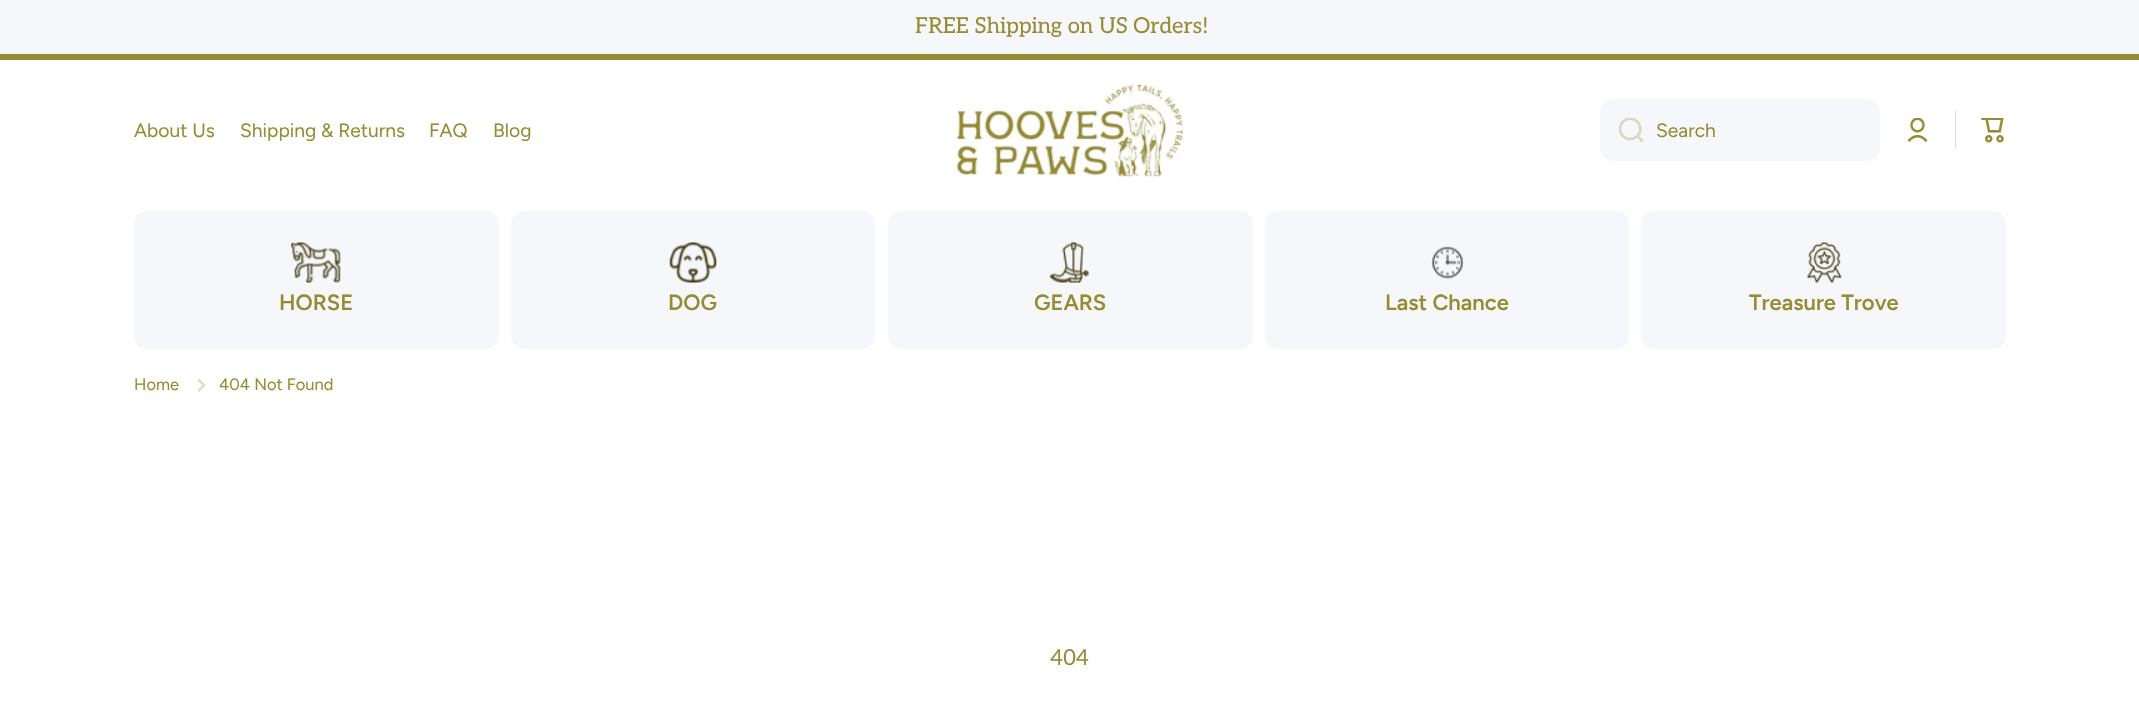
#include "include/core/SkBlurTypes.h"
#include "include/core/SkCanvas.h"
#include "include/core/SkData.h"
#include "include/core/SkFont.h"
#include "include/core/SkFontMgr.h"
#include "include/core/SkImage.h"
#include "include/core/SkMaskFilter.h"
#include "include/core/SkPaint.h"
#include "include/core/SkPathBuilder.h"
#include "include/core/SkTextBlob.h"
#include "include/effects/SkDashPathEffect.h"
#include "include/effects/SkGradientShader.h"
#include "include/utils/SkParsePath.h"

extern sk_sp<SkFontMgr> fontMgr;

void draw(SkCanvas* canvas) {
  SkPaint p;
  p.setAntiAlias(true);
  canvas->clear(SK_ColorWHITE);
  p.setColor(SkColorSetRGB(246, 247, 250));
  canvas->drawRect(SkRect::MakeLTRB(0, 0, 2139, 54), p);
  p.setColor(SkColorSetRGB(149, 140, 51));
  canvas->drawRect(SkRect::MakeLTRB(0, 54, 2139, 60), p);
  canvas->drawImageRect(SkImages::DeferredFromEncodedData(SkData::MakeFromFileName("images/1.png")), SkRect::MakeLTRB(957, 85, 1183, 177), SkSamplingOptions());
  p.setColor(SkColorSetRGB(246, 247, 250));
  canvas->drawRoundRect(SkRect::MakeLTRB(1600, 99, 1880, 161), 13, 13, p);
  canvas->drawImageRect(SkImages::DeferredFromEncodedData(SkData::MakeFromFileName("images/2.png")), SkRect::MakeLTRB(1619, 118, 1644, 143), SkSamplingOptions());
  canvas->drawImageRect(SkImages::DeferredFromEncodedData(SkData::MakeFromFileName("images/3.png")), SkRect::MakeLTRB(1907, 118, 1928, 142), SkSamplingOptions());
  p.setColor(SkColorSetRGB(223, 221, 194));
  canvas->drawRect(SkRect::MakeLTRB(1955, 111, 1956, 149), p);
  canvas->drawImageRect(SkImages::DeferredFromEncodedData(SkData::MakeFromFileName("images/4.png")), SkRect::MakeLTRB(1981, 118, 2004, 143), SkSamplingOptions());
  p.setColor(SkColorSetRGB(246, 247, 250));
  canvas->drawRoundRect(SkRect::MakeLTRB(134, 211, 499, 349), 13, 13, p);
  canvas->drawImageRect(SkImages::DeferredFromEncodedData(SkData::MakeFromFileName("images/5.png")), SkRect::MakeLTRB(291, 242, 341, 283), SkSamplingOptions());
  canvas->drawRoundRect(SkRect::MakeLTRB(511, 211, 875, 349), 13, 13, p);
  canvas->drawImageRect(SkImages::DeferredFromEncodedData(SkData::MakeFromFileName("images/6.png")), SkRect::MakeLTRB(669, 242, 717, 283), SkSamplingOptions());
  canvas->drawRoundRect(SkRect::MakeLTRB(888, 211, 1253, 349), 13, 13, p);
  canvas->drawImageRect(SkImages::DeferredFromEncodedData(SkData::MakeFromFileName("images/7.png")), SkRect::MakeLTRB(1050, 242, 1089, 283), SkSamplingOptions());
  canvas->drawRoundRect(SkRect::MakeLTRB(1265, 211, 1629, 349), 13, 13, p);
  canvas->drawImageRect(SkImages::DeferredFromEncodedData(SkData::MakeFromFileName("images/8.png")), SkRect::MakeLTRB(1431, 246, 1464, 280), SkSamplingOptions());
  canvas->drawRoundRect(SkRect::MakeLTRB(1641, 211, 2006, 349), 13, 13, p);
  canvas->drawImageRect(SkImages::DeferredFromEncodedData(SkData::MakeFromFileName("images/9.png")), SkRect::MakeLTRB(1807, 242, 1842, 283), SkSamplingOptions());
  canvas->drawImageRect(SkImages::DeferredFromEncodedData(SkData::MakeFromFileName("images/10.png")), SkRect::MakeLTRB(197, 379, 206, 392), SkSamplingOptions());
  SkFont font1(fontMgr->matchFamilyStyle("Aleo", SkFontStyle::Normal()), 22);
  font1.setSubpixel(true);
  p.setColor(SkColorSetRGB(149, 140, 51));
  canvas->drawString("FREE Shipping on US Orders!", 915, 33, font1, p);
  SkFont font2(fontMgr->matchFamilyStyle("Figtree", SkFontStyle(300, SkFontStyle::kNormal_Width, SkFontStyle::kUpright_Slant)), 19.25f);
  font2.setSubpixel(true);
  canvas->drawString("About Us", 134, 137, font2, p);
  canvas->drawString("Shipping & Returns", 240, 137, font2, p);
  canvas->drawString("FAQ", 429, 137, font2, p);
  canvas->drawString("Blog", 493, 137, font2, p);
  canvas->drawString("Search", 1656, 137, font2, p);
  SkFont font3(fontMgr->matchFamilyStyle("Figtree", SkFontStyle(600, SkFontStyle::kNormal_Width, SkFontStyle::kUpright_Slant)), 22);
  font3.setSubpixel(true);
  canvas->drawString("HORSE", 279, 310, font3, p);
  canvas->drawString("DOG", 668, 310, font3, p);
  canvas->drawString("GEARS", 1034, 310, font3, p);
  canvas->drawString("Last Chance", 1385, 310, font3, p);
  canvas->drawString("Treasure Trove", 1749, 310, font3, p);
  SkFont font4(fontMgr->matchFamilyStyle("Figtree", SkFontStyle(300, SkFontStyle::kNormal_Width, SkFontStyle::kUpright_Slant)), 16.5f);
  font4.setSubpixel(true);
  canvas->drawString("Home", 134, 390, font4, p);
  canvas->drawString("404 Not Found", 219, 390, font4, p);
  canvas->drawString("404", 1050, 665, font1, p);
}
